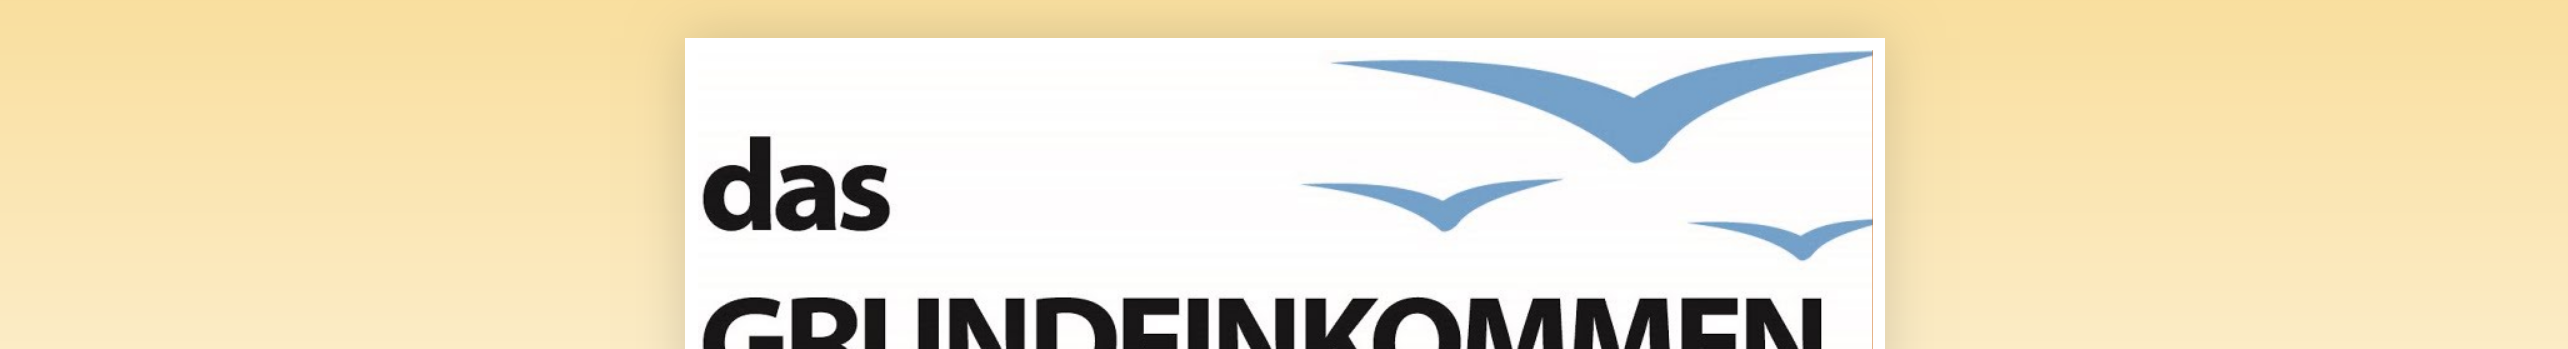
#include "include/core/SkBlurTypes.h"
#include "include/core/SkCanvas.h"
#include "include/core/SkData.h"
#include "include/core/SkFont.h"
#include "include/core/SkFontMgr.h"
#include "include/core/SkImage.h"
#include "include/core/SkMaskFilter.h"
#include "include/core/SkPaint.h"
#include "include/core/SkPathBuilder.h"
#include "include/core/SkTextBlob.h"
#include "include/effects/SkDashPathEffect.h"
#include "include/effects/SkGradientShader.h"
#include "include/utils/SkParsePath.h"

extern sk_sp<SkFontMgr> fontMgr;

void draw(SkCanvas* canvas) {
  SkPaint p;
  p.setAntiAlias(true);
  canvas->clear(SkColorSetRGB(249, 221, 153));
  canvas->drawImageRect(SkImages::DeferredFromEncodedData(SkData::MakeFromFileName("images/1.png")), SkRect::MakeLTRB(0, 0, 2568, 349), SkSamplingOptions());
  p.setColor(SkColorSetARGB(38, 0, 0, 0));
  p.setMaskFilter(SkMaskFilter::MakeBlur(kNormal_SkBlurStyle, 25));
  canvas->drawRect(SkRect::MakeLTRB(685, 38, 1885, 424), p);
  p.setMaskFilter(nullptr);
  p.setColor(SK_ColorWHITE);
  canvas->drawRect(SkRect::MakeLTRB(685, 38, 1885, 349), p);
  p.setColor(SkColorSetRGB(204, 102, 17));
  canvas->drawRect(SkRect::MakeLTRB(1872, 50, 1873, 349), p);
  canvas->drawImageRect(SkImages::DeferredFromEncodedData(SkData::MakeFromFileName("images/2.png")), SkRect::MakeLTRB(1872, 50, 1873, 197), SkSamplingOptions());
  canvas->drawImageRect(SkImages::DeferredFromEncodedData(SkData::MakeFromFileName("images/3.png")), SkRect::MakeLTRB(698, 50, 1873, 349), SkSamplingOptions());
}
